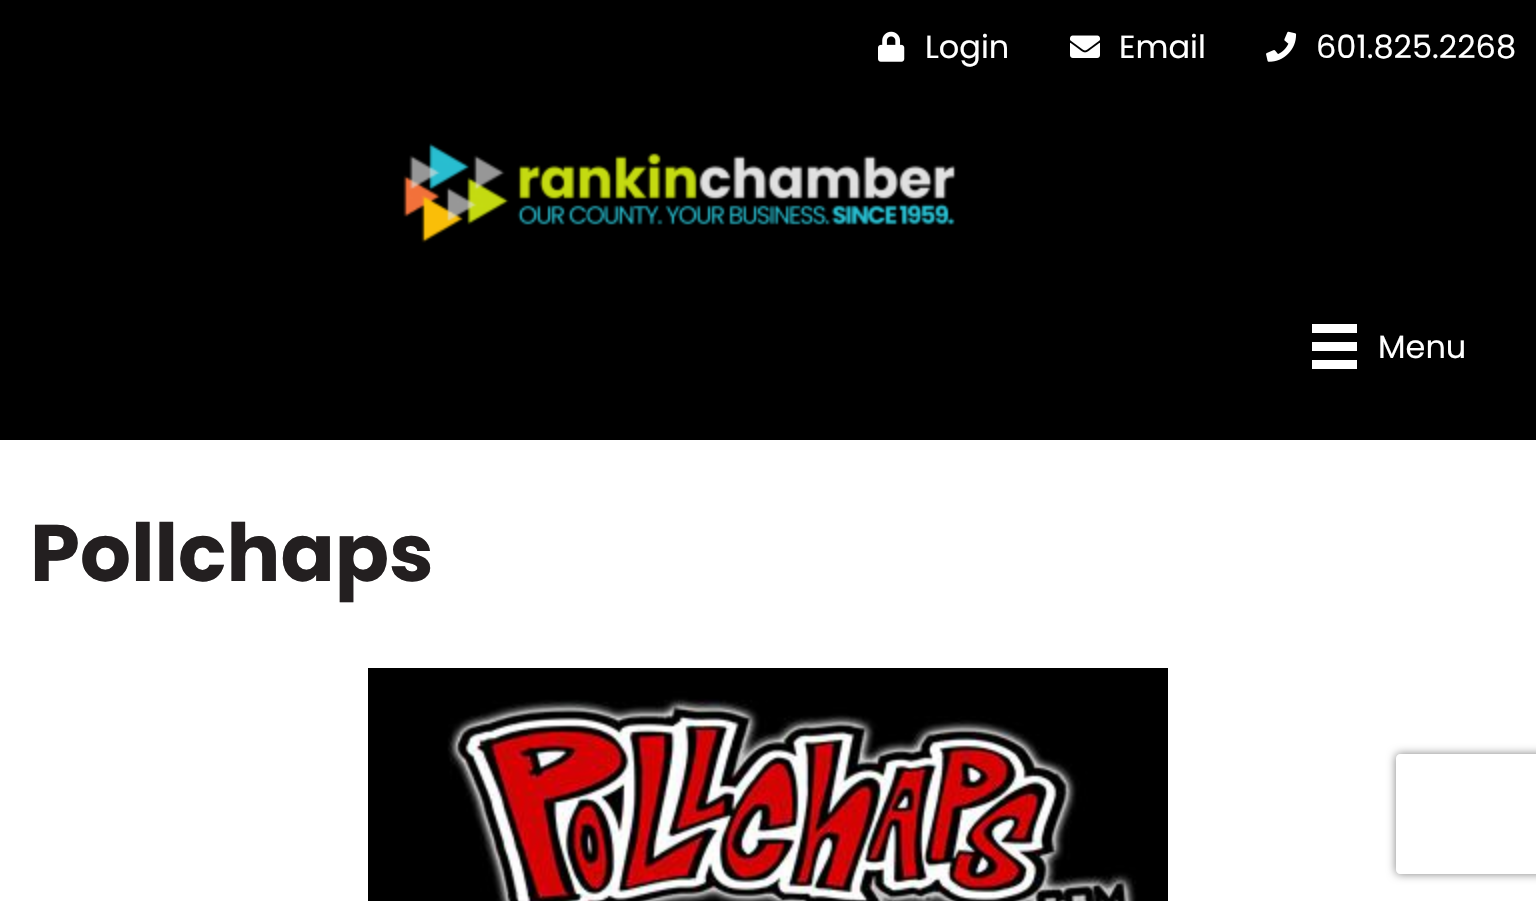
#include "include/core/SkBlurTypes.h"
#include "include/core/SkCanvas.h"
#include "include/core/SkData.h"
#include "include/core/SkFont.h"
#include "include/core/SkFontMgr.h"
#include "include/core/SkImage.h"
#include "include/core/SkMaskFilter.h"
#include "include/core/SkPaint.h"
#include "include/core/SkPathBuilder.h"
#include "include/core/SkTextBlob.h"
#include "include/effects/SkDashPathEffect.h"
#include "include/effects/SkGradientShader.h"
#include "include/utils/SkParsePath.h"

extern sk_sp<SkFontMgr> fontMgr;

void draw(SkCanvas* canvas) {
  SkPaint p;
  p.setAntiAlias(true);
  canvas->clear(SK_ColorBLACK);
  canvas->drawImageRect(SkImages::DeferredFromEncodedData(SkData::MakeFromFileName("images/1.png")), SkRect::MakeLTRB(878, 31, 905, 62), SkSamplingOptions());
  canvas->drawImageRect(SkImages::DeferredFromEncodedData(SkData::MakeFromFileName("images/2.png")), SkRect::MakeLTRB(1070, 35, 1100, 58), SkSamplingOptions());
  canvas->drawImageRect(SkImages::DeferredFromEncodedData(SkData::MakeFromFileName("images/3.png")), SkRect::MakeLTRB(1266, 31, 1297, 62), SkSamplingOptions());
  canvas->drawImageRect(SkImages::DeferredFromEncodedData(SkData::MakeFromFileName("images/4.png")), SkRect::MakeLTRB(403, 143, 956, 243), SkSamplingOptions());
  p.setColor(SK_ColorWHITE);
  canvas->drawRect(SkRect::MakeLTRB(1312, 324, 1357, 333), p);
  canvas->drawRect(SkRect::MakeLTRB(1312, 342, 1357, 351), p);
  canvas->drawRect(SkRect::MakeLTRB(1312, 360, 1357, 369), p);
  canvas->drawRect(SkRect::MakeLTRB(0, 440, 1536, 901), p);
  canvas->drawImageRect(SkImages::DeferredFromEncodedData(SkData::MakeFromFileName("images/5.png")), SkRect::MakeLTRB(368, 668, 1168, 901), SkSamplingOptions());
  canvas->save();
  canvas->clipPath(SkPathBuilder(SkPathFillType::kEvenOdd).moveTo(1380, 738).lineTo(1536, 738).lineTo(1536, 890).lineTo(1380, 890).close().moveTo(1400, 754).lineTo(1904, 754).cubicTo(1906, 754, 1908, 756, 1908, 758).lineTo(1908, 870).cubicTo(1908, 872, 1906, 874, 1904, 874).lineTo(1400, 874).cubicTo(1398, 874, 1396, 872, 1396, 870).lineTo(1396, 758).cubicTo(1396, 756, 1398, 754, 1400, 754).close().detach(), true);
  p.setColor(SkColorSetRGB(128, 128, 128));
  p.setMaskFilter(SkMaskFilter::MakeBlur(kNormal_SkBlurStyle, 5));
  canvas->drawRoundRect(SkRect::MakeLTRB(1396, 754, 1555, 874), 4, 4, p);
  p.setMaskFilter(nullptr);
  canvas->restore();
  SkFont font1(fontMgr->matchFamilyStyle("Poppins", SkFontStyle::Normal()), 32);
  font1.setSubpixel(true);
  p.setColor(SK_ColorWHITE);
  canvas->drawString("Login", 925, 58, font1, p);
  canvas->drawString("Email", 1119, 58, font1, p);
  canvas->drawString("601.825.2268", 1316, 58, font1, p);
  canvas->drawString("Menu", 1378, 358, font1, p);
  SkFont font2(fontMgr->matchFamilyStyle("Poppins", SkFontStyle::Bold()), 80);
  font2.setSubpixel(true);
  p.setColor(SkColorSetRGB(35, 31, 32));
  canvas->drawString("Pollchaps", 30, 581, font2, p);
}
